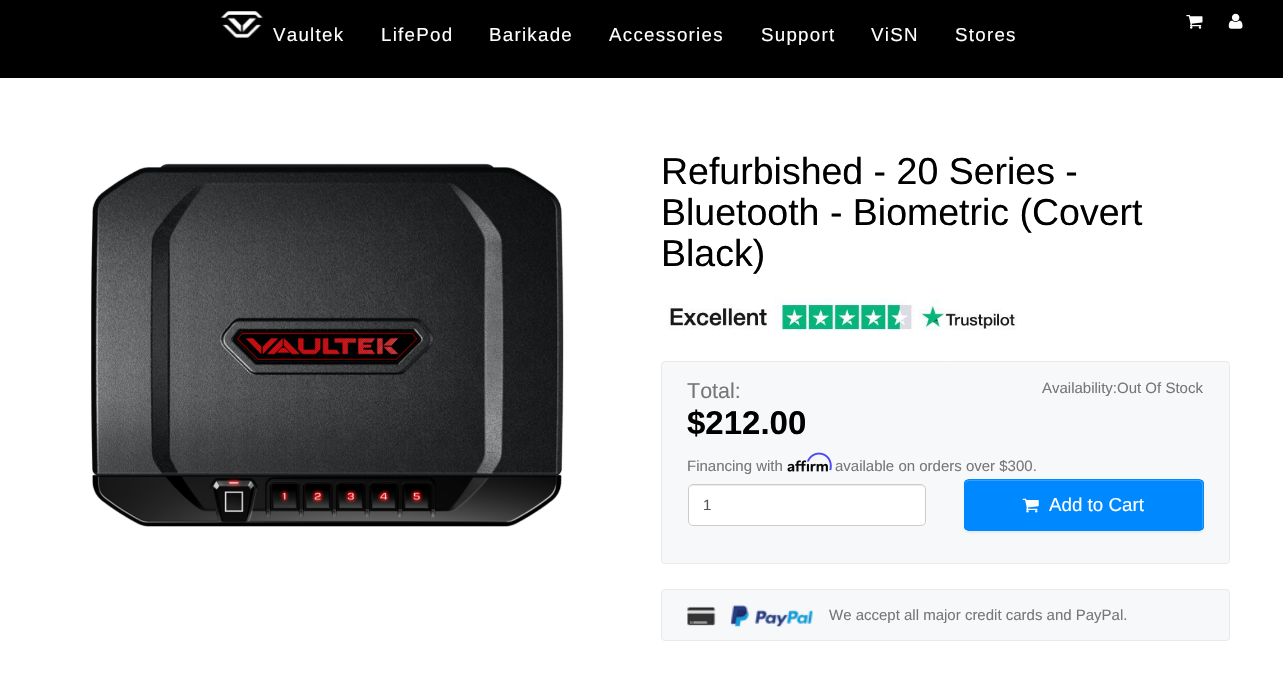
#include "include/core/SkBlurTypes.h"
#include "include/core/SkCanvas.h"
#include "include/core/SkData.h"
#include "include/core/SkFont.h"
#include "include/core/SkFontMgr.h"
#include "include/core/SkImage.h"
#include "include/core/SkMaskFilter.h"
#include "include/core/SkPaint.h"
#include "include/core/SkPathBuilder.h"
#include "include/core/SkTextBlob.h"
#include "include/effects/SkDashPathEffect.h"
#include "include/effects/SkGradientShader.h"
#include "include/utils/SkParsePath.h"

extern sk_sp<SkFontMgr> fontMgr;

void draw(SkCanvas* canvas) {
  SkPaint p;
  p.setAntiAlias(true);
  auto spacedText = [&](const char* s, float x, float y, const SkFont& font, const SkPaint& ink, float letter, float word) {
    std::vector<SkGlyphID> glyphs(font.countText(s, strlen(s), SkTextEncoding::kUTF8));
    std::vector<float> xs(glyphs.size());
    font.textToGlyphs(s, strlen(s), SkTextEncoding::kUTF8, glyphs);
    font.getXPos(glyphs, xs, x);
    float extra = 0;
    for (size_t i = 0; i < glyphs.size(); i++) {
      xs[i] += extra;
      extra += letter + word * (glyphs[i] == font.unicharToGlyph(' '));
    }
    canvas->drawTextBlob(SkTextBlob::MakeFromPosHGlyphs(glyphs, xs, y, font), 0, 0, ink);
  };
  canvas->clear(SK_ColorWHITE);
  p.setColor(SK_ColorBLACK);
  canvas->drawRect(SkRect::MakeLTRB(0, 0, 1283, 78), p);
  canvas->drawImageRect(SkImages::DeferredFromEncodedData(SkData::MakeFromFileName("images/1.png")), SkRect::MakeLTRB(220, 11, 264, 38), SkSamplingOptions());
  canvas->drawImageRect(SkImages::DeferredFromEncodedData(SkData::MakeFromFileName("images/2.png")), SkRect::MakeLTRB(1186, 15, 1203, 29), SkSamplingOptions());
  canvas->drawImageRect(SkImages::DeferredFromEncodedData(SkData::MakeFromFileName("images/3.png")), SkRect::MakeLTRB(1228, 13, 1243, 29), SkSamplingOptions());
  canvas->drawImageRect(SkImages::DeferredFromEncodedData(SkData::MakeFromFileName("images/4.png")), SkRect::MakeLTRB(91, 163, 564, 527), SkSamplingOptions());
  canvas->drawImageRect(SkImages::DeferredFromEncodedData(SkData::MakeFromFileName("images/5.png")), SkRect::MakeLTRB(666, 298, 1017, 331), SkSamplingOptions());
  p.setColor(SkColorSetRGB(247, 248, 250));
  canvas->drawRoundRect(SkRect::MakeLTRB(661.5f, 361.5f, 1229.5f, 563.5f), 3.5f, 3.5f, p);
  p.setStyle(SkPaint::kStroke_Style);
  p.setStrokeWidth(1);
  p.setColor(SkColorSetRGB(233, 233, 233));
  canvas->drawRoundRect(SkRect::MakeLTRB(661.5f, 361.5f, 1229.5f, 563.5f), 3.5f, 3.5f, p);
  canvas->drawImageRect(SkImages::DeferredFromEncodedData(SkData::MakeFromFileName("images/7.png")), SkRect::MakeLTRB(787, 460, 828, 472), SkSamplingOptions());
  canvas->drawImageRect(SkImages::DeferredFromEncodedData(SkData::MakeFromFileName("images/6.png")), SkRect::MakeLTRB(807, 452, 832, 471), SkSamplingOptions());
  p.setStyle(SkPaint::kFill_Style);
  p.setColor(SK_ColorWHITE);
  canvas->drawRoundRect(SkRect::MakeLTRB(688, 484, 926, 526), 5, 5, p);
  p.setColor(SkColorSetRGB(236, 236, 236));
  canvas->drawPath(SkPathBuilder().moveTo(692, 486).lineTo(921, 486).cubicTo(923, 486, 925, 488, 925, 490).cubicTo(925, 487, 924, 485, 921, 485).lineTo(693, 485).cubicTo(690, 485, 689, 487, 689, 490).cubicTo(689, 488, 690, 486, 692, 486).close().detach(), p);
  p.setStyle(SkPaint::kStroke_Style);
  p.setColor(SkColorSetRGB(204, 204, 204));
  canvas->drawRoundRect(SkRect::MakeLTRB(688.5f, 484.5f, 925.5f, 525.5f), 4.5f, 4.5f, p);
  p.setStyle(SkPaint::kFill_Style);
  p.setColor(SkColorSetARGB(13, 0, 0, 0));
  p.setMaskFilter(SkMaskFilter::MakeBlur(kNormal_SkBlurStyle, 1));
  canvas->drawRoundRect(SkRect::MakeLTRB(964, 480, 1204, 533), 5, 5, p);
  p.setMaskFilter(nullptr);
  canvas->save();
  canvas->clipPath(SkPathBuilder().moveTo(969, 479).lineTo(1199, 479).cubicTo(1202, 479, 1204, 481, 1204, 484).lineTo(1204, 526).cubicTo(1204, 529, 1202, 531, 1199, 531).lineTo(969, 531).cubicTo(966, 531, 964, 529, 964, 526).lineTo(964, 484).cubicTo(964, 481, 966, 479, 969, 479).close().detach(), true);
  p.setColor(SkColorSetRGB(0, 136, 255));
  canvas->drawRect(SkRect::MakeLTRB(964, 480, 1204, 530), p);
  canvas->restore();
  p.setColor(SkColorSetRGB(51, 160, 255));
  canvas->drawPath(SkPathBuilder().moveTo(969, 481).lineTo(1199, 481).cubicTo(1201, 481, 1202, 483, 1202, 485).lineTo(1202, 529).cubicTo(1203, 528, 1203, 527, 1203, 526).lineTo(1203, 484).cubicTo(1203, 482, 1201, 480, 1199, 480).lineTo(969, 480).cubicTo(967, 480, 965, 482, 965, 484).lineTo(965, 485).cubicTo(965, 483, 967, 481, 969, 481).close().detach(), p);
  p.setStyle(SkPaint::kStroke_Style);
  p.setColor(SkColorSetRGB(0, 136, 255));
  canvas->drawRoundRect(SkRect::MakeLTRB(964.5f, 479.5f, 1203.5f, 530.5f), 4.5f, 4.5f, p);
  canvas->drawImageRect(SkImages::DeferredFromEncodedData(SkData::MakeFromFileName("images/8.png")), SkRect::MakeLTRB(1022, 498, 1039, 513), SkSamplingOptions());
  p.setStyle(SkPaint::kFill_Style);
  p.setColor(SkColorSetRGB(247, 248, 250));
  canvas->drawRoundRect(SkRect::MakeLTRB(661.5f, 589.5f, 1229.5f, 640.5f), 3.5f, 3.5f, p);
  p.setStyle(SkPaint::kStroke_Style);
  p.setColor(SkColorSetRGB(233, 233, 233));
  canvas->drawRoundRect(SkRect::MakeLTRB(661.5f, 589.5f, 1229.5f, 640.5f), 3.5f, 3.5f, p);
  canvas->drawImageRect(SkImages::DeferredFromEncodedData(SkData::MakeFromFileName("images/9.png")), SkRect::MakeLTRB(687, 605, 813, 627), SkSamplingOptions());
  SkFont font1(fontMgr->matchFamilyStyle("Liberation Sans", SkFontStyle::Normal()), 18.75f);
  font1.setSubpixel(true);
  p.setStyle(SkPaint::kFill_Style);
  p.setColor(SK_ColorWHITE);
  spacedText("Vaultek", 273, 41, font1, p, 1.25f, 0);
  spacedText("LifePod", 381, 41, font1, p, 1.25f, 0);
  spacedText("Barikade", 489, 41, font1, p, 1.25f, 0);
  spacedText("Accessories", 609, 41, font1, p, 1.25f, 0);
  spacedText("Support", 761, 41, font1, p, 1.25f, 0);
  spacedText("ViSN", 871, 41, font1, p, 1.25f, 0);
  spacedText("Stores", 955, 41, font1, p, 1.25f, 0);
  SkFont font2(fontMgr->matchFamilyStyle("Liberation Sans", SkFontStyle::Normal()), 37.5f);
  font2.setSubpixel(true);
  p.setColor(SK_ColorBLACK);
  canvas->drawString("Refurbished - 20 Series -", 661, 184, font2, p);
  canvas->drawString("Bluetooth - Biometric (Covert", 661, 225, font2, p);
  canvas->drawString("Black)", 661, 266, font2, p);
  SkFont font3(fontMgr->matchFamilyStyle("Liberation Sans", SkFontStyle::Normal()), 21.5f);
  font3.setSubpixel(true);
  p.setColor(SkColorSetRGB(119, 119, 119));
  canvas->drawString("Total:", 687, 398, font3, p);
  SkFont font4(fontMgr->matchFamilyStyle("Liberation Sans", SkFontStyle::Bold()), 33);
  font4.setSubpixel(true);
  p.setColor(SK_ColorBLACK);
  canvas->drawString("$212.00", 687, 434, font4, p);
  SkFont font5(fontMgr->matchFamilyStyle("Liberation Sans", SkFontStyle::Normal()), 15);
  font5.setSubpixel(true);
  p.setColor(SkColorSetRGB(119, 119, 119));
  canvas->drawString("Availability:Out Of Stock", 1042, 393, font5, p);
  canvas->drawString("Financing with", 687, 471, font5, p);
  canvas->drawString("available on orders over $300.", 835, 471, font5, p);
  p.setColor(SkColorSetRGB(85, 85, 85));
  canvas->drawString("1", 703, 510, font5, p);
  p.setColor(SK_ColorWHITE);
  canvas->drawString("Add to Cart", 1049, 511, font1, p);
  p.setColor(SkColorSetRGB(119, 119, 119));
  canvas->drawString("We accept all major credit cards and PayPal.", 829, 620, font5, p);
}
